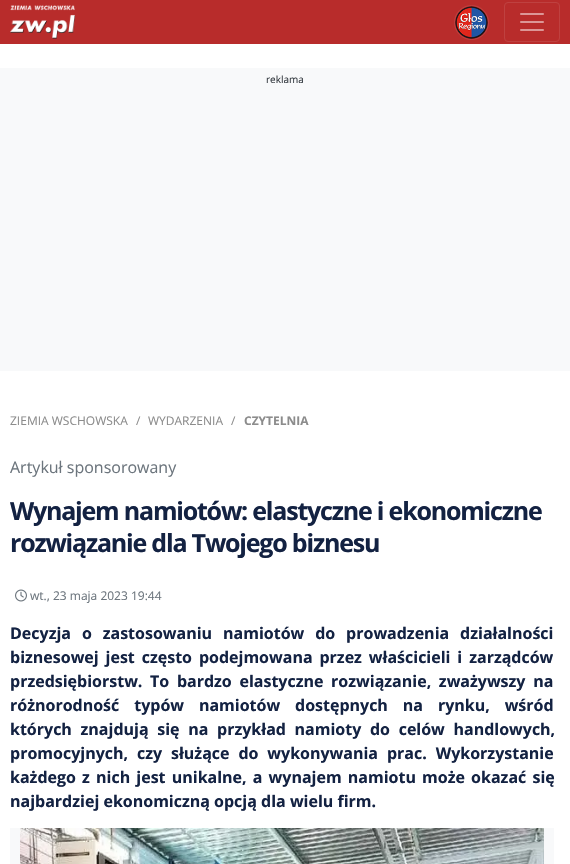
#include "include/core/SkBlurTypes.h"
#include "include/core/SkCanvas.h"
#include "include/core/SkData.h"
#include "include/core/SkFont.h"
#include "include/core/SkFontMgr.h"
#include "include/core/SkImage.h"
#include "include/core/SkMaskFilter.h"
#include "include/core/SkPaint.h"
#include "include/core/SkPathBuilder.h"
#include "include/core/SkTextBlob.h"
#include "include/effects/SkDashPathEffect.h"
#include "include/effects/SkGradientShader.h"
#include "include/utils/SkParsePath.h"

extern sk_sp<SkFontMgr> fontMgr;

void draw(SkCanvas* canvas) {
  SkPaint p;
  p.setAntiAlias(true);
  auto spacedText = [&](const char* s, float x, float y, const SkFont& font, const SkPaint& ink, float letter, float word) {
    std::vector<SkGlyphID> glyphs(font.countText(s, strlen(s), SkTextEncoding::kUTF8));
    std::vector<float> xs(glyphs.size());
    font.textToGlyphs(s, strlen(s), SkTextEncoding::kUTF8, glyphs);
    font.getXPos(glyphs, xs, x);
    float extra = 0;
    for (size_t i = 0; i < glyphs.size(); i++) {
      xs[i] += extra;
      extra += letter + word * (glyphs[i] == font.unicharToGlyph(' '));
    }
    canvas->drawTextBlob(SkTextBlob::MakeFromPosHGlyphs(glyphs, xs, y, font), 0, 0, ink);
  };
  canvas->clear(SK_ColorWHITE);
  p.setColor(SkColorSetRGB(184, 44, 43));
  canvas->drawRect(SkRect::MakeLTRB(0, 0, 570, 44), p);
  canvas->drawImageRect(SkImages::DeferredFromEncodedData(SkData::MakeFromFileName("images/1.png")), SkRect::MakeLTRB(10, 5, 75, 39), SkSamplingOptions());
  p.setStyle(SkPaint::kStroke_Style);
  p.setStrokeWidth(1);
  p.setColor(SkColorSetRGB(191, 65, 64));
  canvas->drawCircle(471.5f, 22.5f, 17, p);
  canvas->drawImageRect(SkImages::DeferredFromEncodedData(SkData::MakeFromFileName("images/2.png")), SkRect::MakeLTRB(455, 6, 488, 39), SkSamplingOptions());
  canvas->drawRoundRect(SkRect::MakeLTRB(504.5f, 2.5f, 559.5f, 41.5f), 3.5f, 3.5f, p);
  canvas->drawImageRect(SkImages::DeferredFromEncodedData(SkData::MakeFromFileName("images/3.png")), SkRect::MakeLTRB(520, 13, 544, 31), SkSamplingOptions());
  p.setStyle(SkPaint::kFill_Style);
  p.setColor(SkColorSetRGB(248, 249, 250));
  canvas->drawRect(SkRect::MakeLTRB(0, 68, 570, 371), p);
  canvas->drawImageRect(SkImages::DeferredFromEncodedData(SkData::MakeFromFileName("images/4.png")), SkRect::MakeLTRB(15, 589, 27, 602), SkSamplingOptions());
  canvas->drawRect(SkRect::MakeLTRB(10, 828, 554, 864), p);
  canvas->drawImageRect(SkImages::DeferredFromEncodedData(SkData::MakeFromFileName("images/5.png")), SkRect::MakeLTRB(20, 828, 544, 864), SkSamplingOptions());
  SkFont font1(fontMgr->matchFamilyStyle("Open Sans", SkFontStyle::Normal()), 10);
  font1.setSubpixel(true);
  p.setColor(SkColorSetRGB(52, 58, 64));
  canvas->drawString("reklama", 266, 83, font1, p);
  SkFont font2(fontMgr->matchFamilyStyle("Open Sans", SkFontStyle::Normal()), 12);
  font2.setSubpixel(true);
  p.setColor(SkColorSetRGB(140, 140, 140));
  canvas->drawString("ZIEMIA WSCHOWSKA", 10, 425, font2, p);
  canvas->drawString("/", 136, 425, font2, p);
  canvas->drawString("WYDARZENIA", 148, 425, font2, p);
  canvas->drawString("/", 231, 425, font2, p);
  SkFont font3(fontMgr->matchFamilyStyle("Open Sans", SkFontStyle::Bold()), 12);
  font3.setSubpixel(true);
  canvas->drawString("CZYTELNIA", 244, 425, font3, p);
  SkFont font4(fontMgr->matchFamilyStyle("Open Sans", SkFontStyle::Normal()), 16);
  font4.setSubpixel(true);
  p.setColor(SkColorSetRGB(108, 117, 125));
  canvas->drawString("Artykuł sponsorowany", 10, 473, font4, p);
  SkFont font5(fontMgr->matchFamilyStyle("Open Sans", SkFontStyle::Bold()), 25);
  font5.setSubpixel(true);
  p.setColor(SkColorSetRGB(19, 34, 66));
  spacedText("Wynajem namiotów: elastyczne i ekonomiczne", 10, 520, font5, p, -1.2f, 0);
  spacedText("rozwiązanie dla Twojego biznesu", 10, 552, font5, p, -1.2f, 0);
  p.setColor(SkColorSetRGB(108, 117, 125));
  canvas->drawString("wt., 23 maja 2023 19:44", 30, 600, font2, p);
  SkFont font6(fontMgr->matchFamilyStyle("Open Sans", SkFontStyle::Bold()), 16);
  font6.setSubpixel(true);
  p.setColor(SkColorSetRGB(19, 34, 66));
  spacedText("Decyzja o zastosowaniu namiotów do prowadzenia działalności", 10, 639, font6, p, 0, 6.75f);
  spacedText("biznesowej jest często podejmowana przez właścicieli i zarządców", 10, 663, font6, p, 0, 2.75f);
  spacedText("przedsiębiorstw. To bardzo elastyczne rozwiązanie, zważywszy na", 10, 687, font6, p, 0, 3.5f);
  spacedText("różnorodność typów namiotów dostępnych na rynku, wśród", 10, 711, font6, p, 0, 10.75f);
  spacedText("których znajdują się na przykład namioty do celów handlowych,", 10, 735, font6, p, 0, 4.5f);
  spacedText("promocyjnych, czy służące do wykonywania prac. Wykorzystanie", 10, 759, font6, p, 0, 4.75f);
  spacedText("każdego z nich jest unikalne, a wynajem namiotu może okazać się", 10, 783, font6, p, 0, 2);
  canvas->drawString("najbardziej ekonomiczną opcją dla wielu firm.", 10, 807, font6, p);
}
